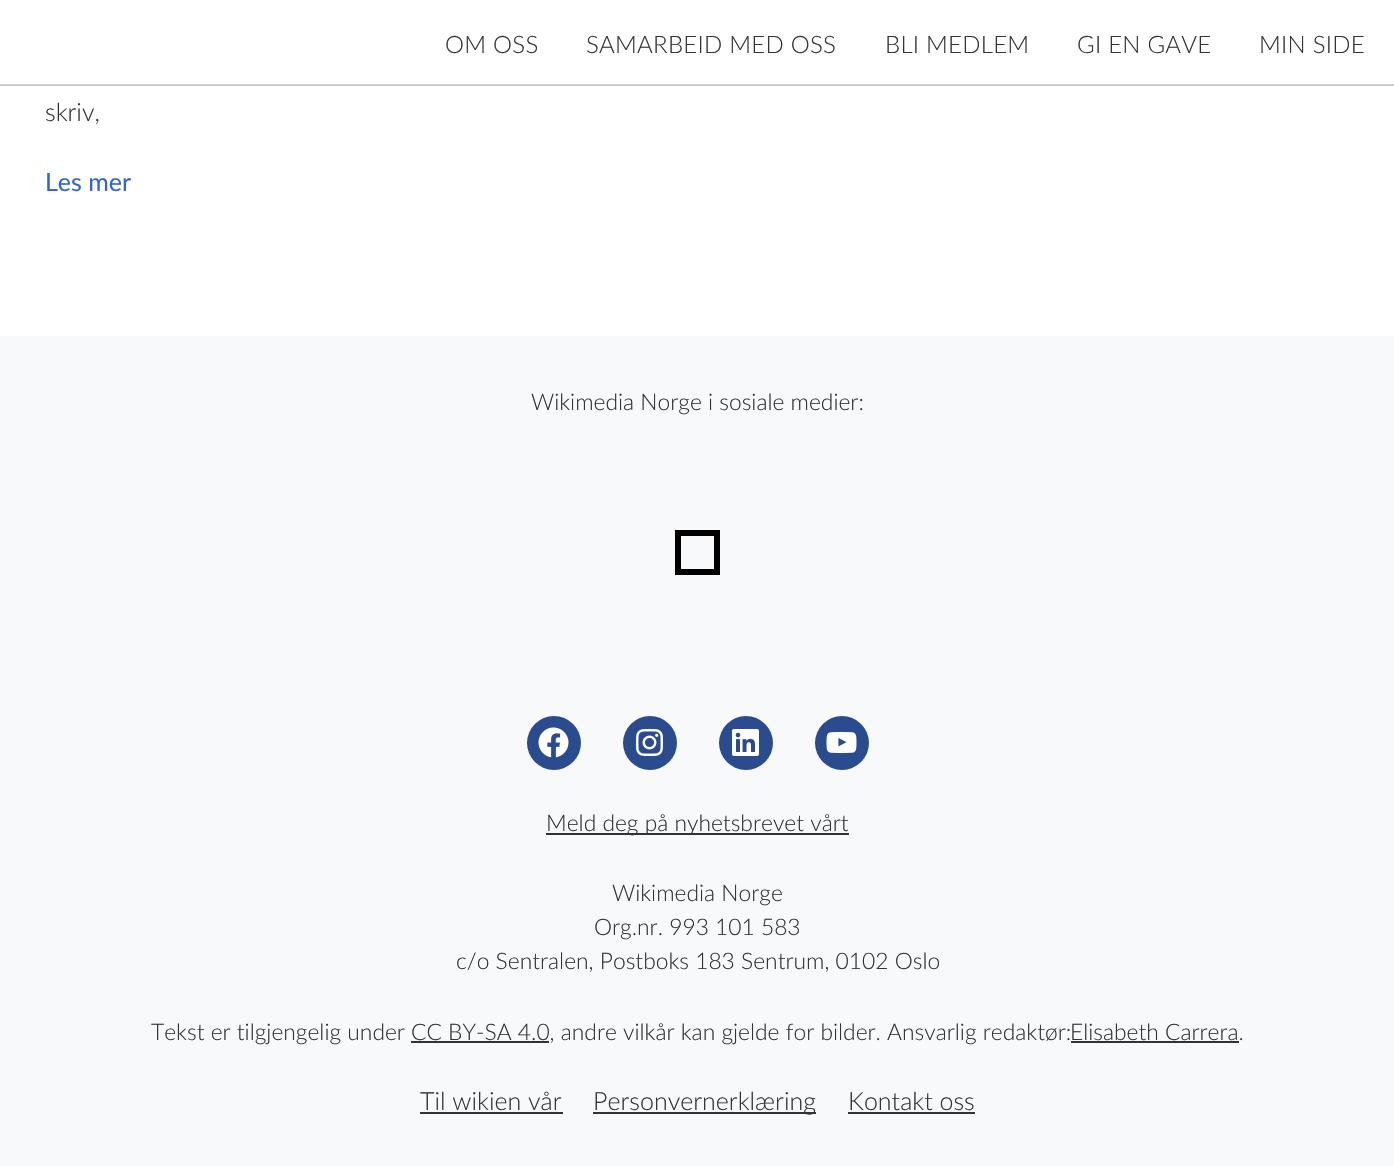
#include "include/core/SkBlurTypes.h"
#include "include/core/SkCanvas.h"
#include "include/core/SkData.h"
#include "include/core/SkFont.h"
#include "include/core/SkFontMgr.h"
#include "include/core/SkImage.h"
#include "include/core/SkMaskFilter.h"
#include "include/core/SkPaint.h"
#include "include/core/SkPathBuilder.h"
#include "include/core/SkTextBlob.h"
#include "include/effects/SkDashPathEffect.h"
#include "include/effects/SkGradientShader.h"
#include "include/utils/SkParsePath.h"

extern sk_sp<SkFontMgr> fontMgr;

void draw(SkCanvas* canvas) {
  SkPaint p;
  p.setAntiAlias(true);
  auto spacedText = [&](const char* s, float x, float y, const SkFont& font, const SkPaint& ink, float letter, float word) {
    std::vector<SkGlyphID> glyphs(font.countText(s, strlen(s), SkTextEncoding::kUTF8));
    std::vector<float> xs(glyphs.size());
    font.textToGlyphs(s, strlen(s), SkTextEncoding::kUTF8, glyphs);
    font.getXPos(glyphs, xs, x);
    float extra = 0;
    for (size_t i = 0; i < glyphs.size(); i++) {
      xs[i] += extra;
      extra += letter + word * (glyphs[i] == font.unicharToGlyph(' '));
    }
    canvas->drawTextBlob(SkTextBlob::MakeFromPosHGlyphs(glyphs, xs, y, font), 0, 0, ink);
  };
  canvas->clear(SkColorSetRGB(248, 249, 250));
  p.setColor(SK_ColorWHITE);
  canvas->drawRect(SkRect::MakeLTRB(0, 86, 1394, 336), p);
  canvas->drawRect(SkRect::MakeLTRB(0, 0, 1394, 84), p);
  p.setColor(SkColorSetRGB(204, 204, 204));
  canvas->drawRect(SkRect::MakeLTRB(0, 84, 1394, 86), p);
  p.setStyle(SkPaint::kStroke_Style);
  p.setStrokeWidth(6);
  p.setColor(SK_ColorBLACK);
  canvas->drawRect(SkRect::MakeLTRB(678, 533, 717, 572), p);
  p.setStyle(SkPaint::kFill_Style);
  p.setColor(SkColorSetRGB(42, 75, 141));
  canvas->drawCircle(554, 743, 27, p);
  canvas->drawImageRect(SkImages::DeferredFromEncodedData(SkData::MakeFromFileName("images/1.png")), SkRect::MakeLTRB(538, 727, 569, 758), SkSamplingOptions());
  canvas->drawCircle(650, 743, 27, p);
  canvas->drawImageRect(SkImages::DeferredFromEncodedData(SkData::MakeFromFileName("images/2.png")), SkRect::MakeLTRB(636, 729, 663, 756), SkSamplingOptions());
  canvas->drawCircle(746, 743, 27, p);
  canvas->drawImageRect(SkImages::DeferredFromEncodedData(SkData::MakeFromFileName("images/3.png")), SkRect::MakeLTRB(732, 729, 759, 756), SkSamplingOptions());
  canvas->drawCircle(842, 743, 27, p);
  canvas->drawImageRect(SkImages::DeferredFromEncodedData(SkData::MakeFromFileName("images/4.png")), SkRect::MakeLTRB(826, 731, 857, 754), SkSamplingOptions());
  p.setColor(SkColorSetRGB(51, 51, 51));
  canvas->drawRect(SkRect::MakeLTRB(546, 833, 849, 835), p);
  canvas->drawRect(SkRect::MakeLTRB(1071, 1041, 1239, 1043), p);
  canvas->drawRect(SkRect::MakeLTRB(411, 1041, 549, 1043), p);
  canvas->drawRect(SkRect::MakeLTRB(420, 1112, 563, 1114), p);
  canvas->drawRect(SkRect::MakeLTRB(593, 1112, 816, 1114), p);
  canvas->drawRect(SkRect::MakeLTRB(848, 1112, 975, 1114), p);
  SkFont font1(fontMgr->matchFamilyStyle("Lato", SkFontStyle(300, SkFontStyle::kNormal_Width, SkFontStyle::kUpright_Slant)), 24);
  font1.setSubpixel(true);
  spacedText("OM OSS", 445, 53, font1, p, 0.25f, 0);
  spacedText("SAMARBEID MED OSS", 586, 53, font1, p, 0.25f, 0);
  spacedText("BLI MEDLEM", 885, 53, font1, p, 0.25f, 0);
  spacedText("GI EN GAVE", 1077, 53, font1, p, 0.25f, 0);
  spacedText("MIN SIDE", 1259, 53, font1, p, 0.25f, 0);
  SkFont font2(fontMgr->matchFamilyStyle("Lato", SkFontStyle(300, SkFontStyle::kNormal_Width, SkFontStyle::kUpright_Slant)), 25);
  font2.setSubpixel(true);
  canvas->drawString("skriv,", 45, 121, font2, p);
  SkFont font3(fontMgr->matchFamilyStyle("Lato", SkFontStyle::Normal()), 25);
  font3.setSubpixel(true);
  p.setColor(SkColorSetRGB(51, 102, 204));
  canvas->drawString("Les mer", 45, 191, font3, p);
  SkFont font4(fontMgr->matchFamilyStyle("Lato", SkFontStyle(300, SkFontStyle::kNormal_Width, SkFontStyle::kUpright_Slant)), 22.8f);
  font4.setSubpixel(true);
  p.setColor(SkColorSetRGB(51, 51, 51));
  canvas->drawString("Wikimedia Norge i sosiale medier:", 531, 410, font4, p);
  canvas->drawString("Meld deg på nyhetsbrevet vårt", 546, 831, font4, p);
  canvas->drawString("Wikimedia Norge", 612, 901, font4, p);
  canvas->drawString("Org.nr. 993 101 583", 594, 935, font4, p);
  canvas->drawString("c/o Sentralen, Postboks 183 Sentrum, 0102 Oslo", 456, 969, font4, p);
  canvas->drawString("Tekst er tilgjengelig under CC BY-SA 4.0, andre vilkår kan gjelde for bilder. Ansvarlig redaktør:", 151, 1040, font4, p);
  canvas->drawString("Elisabeth Carrera.", 1070, 1040, font4, p);
  canvas->drawString("Til wikien vår", 420, 1110, font2, p);
  canvas->drawString("Personvernerklæring", 593, 1110, font2, p);
  canvas->drawString("Kontakt oss", 848, 1110, font2, p);
}
